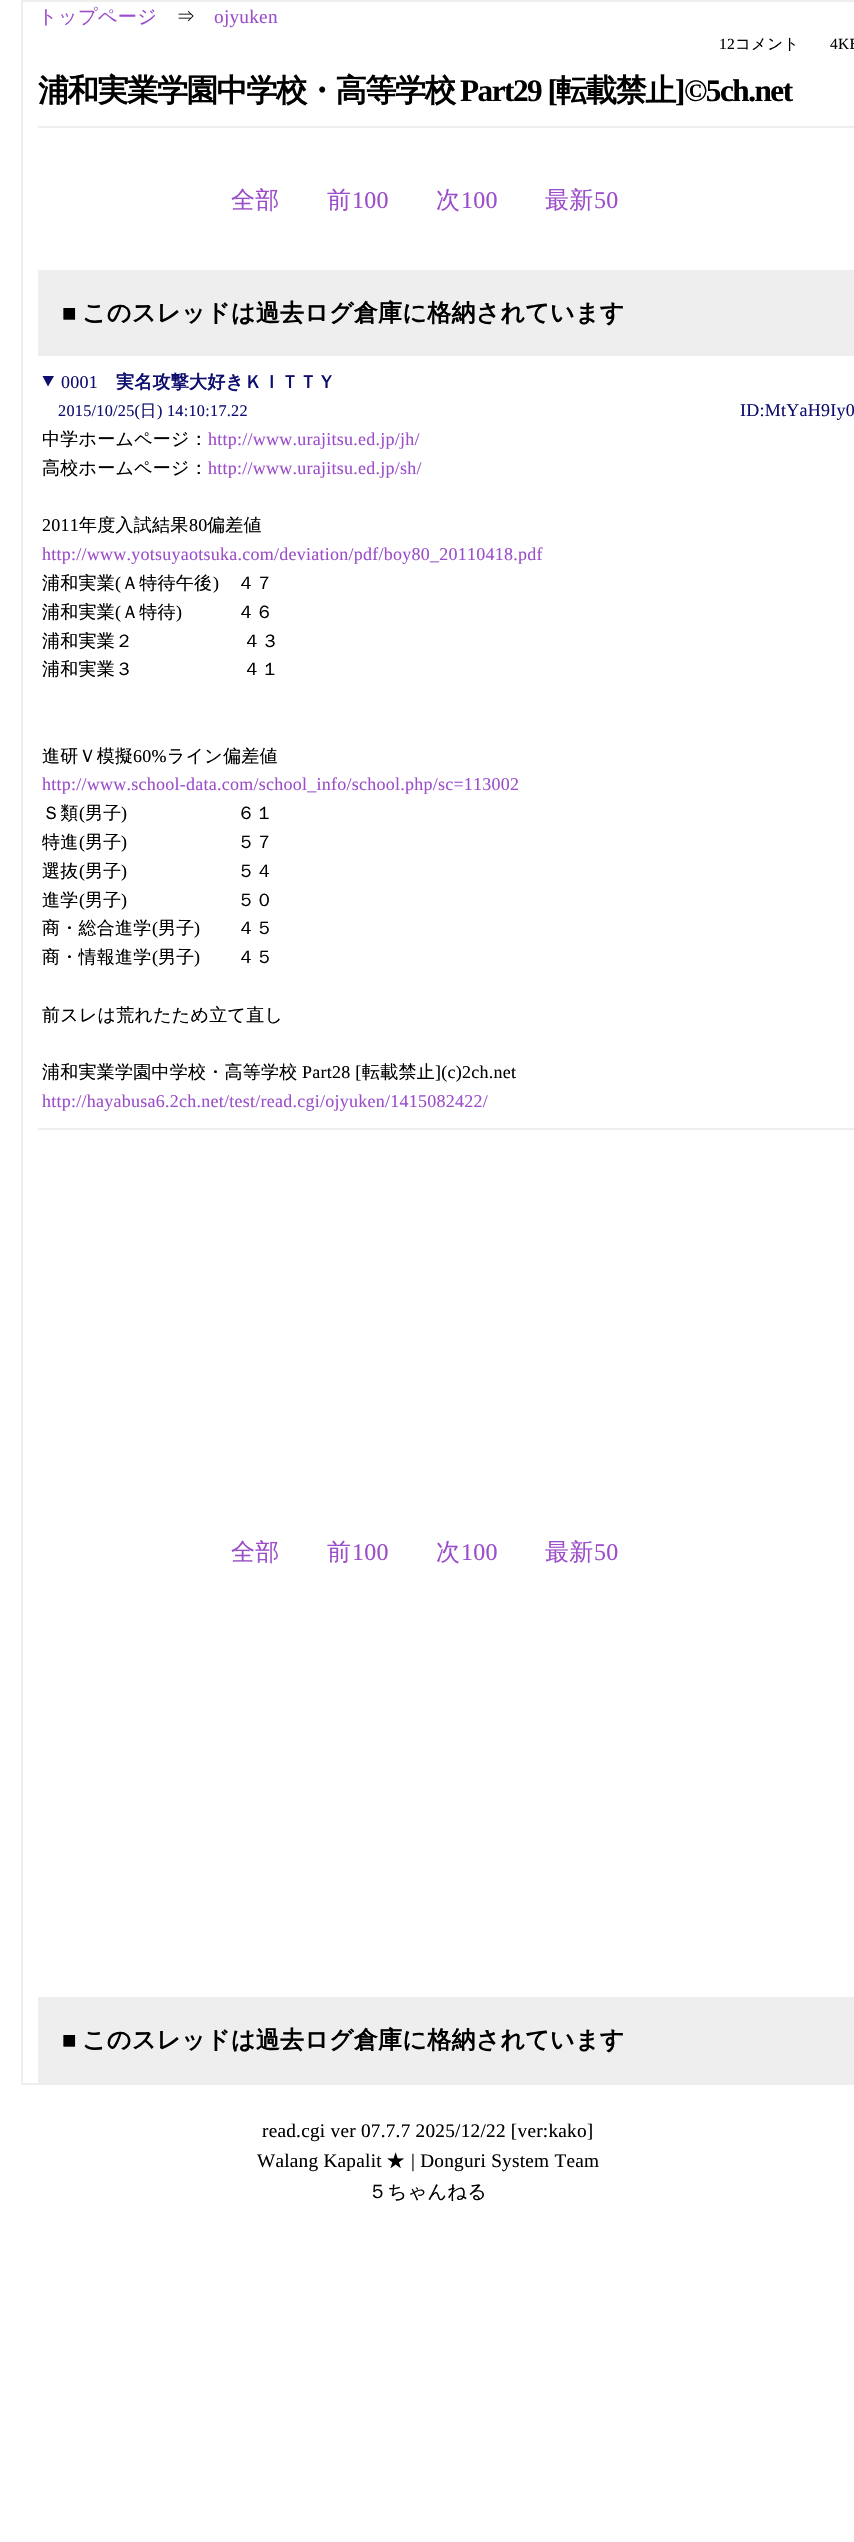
#include "include/core/SkBlurTypes.h"
#include "include/core/SkCanvas.h"
#include "include/core/SkData.h"
#include "include/core/SkFont.h"
#include "include/core/SkFontMgr.h"
#include "include/core/SkImage.h"
#include "include/core/SkMaskFilter.h"
#include "include/core/SkPaint.h"
#include "include/core/SkPathBuilder.h"
#include "include/core/SkTextBlob.h"
#include "include/effects/SkDashPathEffect.h"
#include "include/effects/SkGradientShader.h"
#include "include/utils/SkParsePath.h"

extern sk_sp<SkFontMgr> fontMgr;

void draw(SkCanvas* canvas) {
  SkPaint p;
  p.setAntiAlias(true);
  auto spacedText = [&](const char* s, float x, float y, const SkFont& font, const SkPaint& ink, float letter, float word) {
    std::vector<SkGlyphID> glyphs(font.countText(s, strlen(s), SkTextEncoding::kUTF8));
    std::vector<float> xs(glyphs.size());
    font.textToGlyphs(s, strlen(s), SkTextEncoding::kUTF8, glyphs);
    font.getXPos(glyphs, xs, x);
    float extra = 0;
    for (size_t i = 0; i < glyphs.size(); i++) {
      xs[i] += extra;
      extra += letter + word * (glyphs[i] == font.unicharToGlyph(' '));
    }
    canvas->drawTextBlob(SkTextBlob::MakeFromPosHGlyphs(glyphs, xs, y, font), 0, 0, ink);
  };
  canvas->clear(SK_ColorWHITE);
  p.setStyle(SkPaint::kStroke_Style);
  p.setStrokeWidth(2);
  p.setColor(SkColorSetRGB(238, 238, 238));
  canvas->drawRect(SkRect::MakeLTRB(22, 1, 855, 2084), p);
  p.setStyle(SkPaint::kFill_Style);
  canvas->drawRect(SkRect::MakeLTRB(38, 126, 854, 128), p);
  canvas->drawRect(SkRect::MakeLTRB(38, 270, 854, 356), p);
  canvas->drawRect(SkRect::MakeLTRB(38, 1128, 854, 1130), p);
  p.setColor(SkColorSetRGB(14, 14, 110));
  canvas->drawPath(SkPathBuilder().moveTo(42.5f, 376).lineTo(54, 376).lineTo(48, 386.5f).close().detach(), p);
  p.setColor(SkColorSetRGB(238, 238, 238));
  canvas->drawRect(SkRect::MakeLTRB(38, 1997, 854, 2083), p);
  SkFont font1(fontMgr->matchFamilyStyle("WenQuanYi Zen Hei", SkFontStyle(500, SkFontStyle::kNormal_Width, SkFontStyle::kUpright_Slant)), 19.25f);
  font1.setSubpixel(true);
  p.setColor(SkColorSetRGB(155, 77, 202));
  spacedText("トップページ", 38, 23, font1, p, 0.25f, 0);
  p.setColor(SK_ColorBLACK);
  spacedText("⇒", 176, 23, font1, p, 0.25f, 0);
  SkFont font2(fontMgr->matchFamilyStyle("Liberation Serif", SkFontStyle::Normal()), 19.25f);
  font2.setSubpixel(true);
  p.setColor(SkColorSetRGB(155, 77, 202));
  spacedText("ojyuken", 214, 23, font2, p, 0.25f, 0);
  SkFont font3(fontMgr->matchFamilyStyle("Liberation Serif", SkFontStyle::Normal()), 15.5f);
  font3.setSubpixel(true);
  p.setColor(SK_ColorBLACK);
  spacedText("12", 719, 49, font3, p, 0.25f, 0);
  SkFont font4(fontMgr->matchFamilyStyle("WenQuanYi Zen Hei", SkFontStyle(500, SkFontStyle::kNormal_Width, SkFontStyle::kUpright_Slant)), 15.5f);
  font4.setSubpixel(true);
  spacedText("コメント", 735, 49, font4, p, 0.25f, 0);
  spacedText("4KB", 830, 49, font3, p, 0.25f, 0);
  SkFont font5(fontMgr->matchFamilyStyle("WenQuanYi Zen Hei", SkFontStyle::Bold()), 31.25f);
  font5.setSubpixel(true);
  spacedText("浦和実業学園中学校・高等学校", 38, 101, font5, p, -1.5f, 0);
  SkFont font6(fontMgr->matchFamilyStyle("Liberation Serif", SkFontStyle::Bold()), 31.25f);
  font6.setSubpixel(true);
  spacedText("Part29 [", 460, 101, font6, p, -1.5f, 0);
  spacedText("転載禁止", 556, 101, font5, p, -1.5f, 0);
  spacedText("]©5ch.net", 675, 101, font6, p, -1.5f, 0);
  SkFont font7(fontMgr->matchFamilyStyle("WenQuanYi Zen Hei", SkFontStyle(500, SkFontStyle::kNormal_Width, SkFontStyle::kUpright_Slant)), 24);
  font7.setSubpixel(true);
  p.setColor(SkColorSetRGB(155, 77, 202));
  spacedText("全部", 231, 208, font7, p, 0.25f, 0);
  spacedText("前", 327, 208, font7, p, 0.25f, 0);
  SkFont font8(fontMgr->matchFamilyStyle("Liberation Serif", SkFontStyle::Normal()), 24);
  font8.setSubpixel(true);
  spacedText("100", 352, 208, font8, p, 0.25f, 0);
  spacedText("次", 436, 208, font7, p, 0.25f, 0);
  spacedText("100", 461, 208, font8, p, 0.25f, 0);
  spacedText("最新", 545, 208, font7, p, 0.25f, 0);
  spacedText("50", 594, 208, font8, p, 0.25f, 0);
  SkFont font9(fontMgr->matchFamilyStyle("Liberation Serif", SkFontStyle::Bold()), 24);
  font9.setSubpixel(true);
  p.setColor(SK_ColorBLACK);
  spacedText("■", 62, 321, font9, p, 0.25f, 0);
  SkFont font10(fontMgr->matchFamilyStyle("WenQuanYi Zen Hei", SkFontStyle::Bold()), 24);
  font10.setSubpixel(true);
  spacedText("このスレッドは過去ログ倉庫に格納されています", 82, 321, font10, p, 0.25f, 0);
  SkFont font11(fontMgr->matchFamilyStyle("Liberation Serif", SkFontStyle::Normal()), 18);
  font11.setSubpixel(true);
  p.setColor(SkColorSetRGB(14, 14, 110));
  spacedText("0001", 61, 388, font11, p, 0.25f, 0);
  SkFont font12(fontMgr->matchFamilyStyle("WenQuanYi Zen Hei", SkFontStyle::Bold()), 18);
  font12.setSubpixel(true);
  spacedText("実名攻撃大好きＫＩＴＴＹ", 116, 388, font12, p, 0.25f, 0);
  SkFont font13(fontMgr->matchFamilyStyle("Liberation Serif", SkFontStyle::Normal()), 16.25f);
  font13.setSubpixel(true);
  spacedText("2015/10/25(", 58, 416, font13, p, 0.25f, 0);
  SkFont font14(fontMgr->matchFamilyStyle("WenQuanYi Zen Hei", SkFontStyle(500, SkFontStyle::kNormal_Width, SkFontStyle::kUpright_Slant)), 16.25f);
  font14.setSubpixel(true);
  spacedText("日", 140, 416, font14, p, 0.25f, 0);
  spacedText(") 14:10:17.22", 157, 416, font13, p, 0.25f, 0);
  spacedText("ID:MtYaH9Iy0", 740, 416, font11, p, 0.25f, 0);
  SkFont font15(fontMgr->matchFamilyStyle("WenQuanYi Zen Hei", SkFontStyle(500, SkFontStyle::kNormal_Width, SkFontStyle::kUpright_Slant)), 18);
  font15.setSubpixel(true);
  p.setColor(SK_ColorBLACK);
  spacedText("中学ホームページ：", 42, 445, font15, p, 0.25f, 0);
  p.setColor(SkColorSetRGB(155, 77, 202));
  spacedText("http://www.urajitsu.ed.jp/jh/", 208, 445, font11, p, 0.25f, 0);
  p.setColor(SK_ColorBLACK);
  spacedText("高校ホームページ：", 42, 474, font15, p, 0.25f, 0);
  p.setColor(SkColorSetRGB(155, 77, 202));
  spacedText("http://www.urajitsu.ed.jp/sh/", 208, 474, font11, p, 0.25f, 0);
  p.setColor(SK_ColorBLACK);
  spacedText("2011", 42, 531, font11, p, 0.25f, 0);
  spacedText("年度入試結果", 79, 531, font15, p, 0.25f, 0);
  spacedText("80", 189, 531, font11, p, 0.25f, 0);
  spacedText("偏差値", 207, 531, font15, p, 0.25f, 0);
  p.setColor(SkColorSetRGB(155, 77, 202));
  spacedText("http://www.yotsuyaotsuka.com/deviation/pdf/boy80_20110418.pdf", 42, 560, font11, p, 0.25f, 0);
  p.setColor(SK_ColorBLACK);
  spacedText("浦和実業", 42, 589, font15, p, 0.25f, 0);
  spacedText("(", 115, 589, font11, p, 0.25f, 0);
  spacedText("Ａ特待午後", 121, 589, font15, p, 0.25f, 0);
  spacedText(")", 213, 589, font11, p, 0.25f, 0);
  spacedText("４７", 237, 589, font15, p, 0.25f, 0);
  spacedText("浦和実業", 42, 618, font15, p, 0.25f, 0);
  spacedText("(", 115, 618, font11, p, 0.25f, 0);
  spacedText("Ａ特待", 121, 618, font15, p, 0.25f, 0);
  spacedText(")", 176, 618, font11, p, 0.25f, 0);
  spacedText("４６", 237, 618, font15, p, 0.25f, 0);
  spacedText("浦和実業２　　　　　　４３", 42, 647, font15, p, 0.25f, 0);
  spacedText("浦和実業３　　　　　　４１", 42, 675, font15, p, 0.25f, 0);
  spacedText("進研Ｖ模擬", 42, 762, font15, p, 0.25f, 0);
  spacedText("60%", 133, 762, font11, p, 0.25f, 0);
  spacedText("ライン偏差値", 167, 762, font15, p, 0.25f, 0);
  p.setColor(SkColorSetRGB(155, 77, 202));
  spacedText("http://www.school-data.com/school_info/school.php/sc=113002", 42, 790, font11, p, 0.25f, 0);
  p.setColor(SK_ColorBLACK);
  spacedText("Ｓ類", 42, 819, font15, p, 0.25f, 0);
  spacedText("(", 79, 819, font11, p, 0.25f, 0);
  spacedText("男子", 85, 819, font15, p, 0.25f, 0);
  spacedText(")", 121, 819, font11, p, 0.25f, 0);
  spacedText("６１", 237, 819, font15, p, 0.25f, 0);
  spacedText("特進", 42, 848, font15, p, 0.25f, 0);
  spacedText("(", 79, 848, font11, p, 0.25f, 0);
  spacedText("男子", 85, 848, font15, p, 0.25f, 0);
  spacedText(")", 121, 848, font11, p, 0.25f, 0);
  spacedText("５７", 237, 848, font15, p, 0.25f, 0);
  spacedText("選抜", 42, 877, font15, p, 0.25f, 0);
  spacedText("(", 79, 877, font11, p, 0.25f, 0);
  spacedText("男子", 85, 877, font15, p, 0.25f, 0);
  spacedText(")", 121, 877, font11, p, 0.25f, 0);
  spacedText("５４", 237, 877, font15, p, 0.25f, 0);
  spacedText("進学", 42, 906, font15, p, 0.25f, 0);
  spacedText("(", 79, 906, font11, p, 0.25f, 0);
  spacedText("男子", 85, 906, font15, p, 0.25f, 0);
  spacedText(")", 121, 906, font11, p, 0.25f, 0);
  spacedText("５０", 237, 906, font15, p, 0.25f, 0);
  spacedText("商・総合進学", 42, 934, font15, p, 0.25f, 0);
  spacedText("(", 152, 934, font11, p, 0.25f, 0);
  spacedText("男子", 158, 934, font15, p, 0.25f, 0);
  spacedText(")", 194, 934, font11, p, 0.25f, 0);
  spacedText("４５", 237, 934, font15, p, 0.25f, 0);
  spacedText("商・情報進学", 42, 963, font15, p, 0.25f, 0);
  spacedText("(", 152, 963, font11, p, 0.25f, 0);
  spacedText("男子", 158, 963, font15, p, 0.25f, 0);
  spacedText(")", 194, 963, font11, p, 0.25f, 0);
  spacedText("４５", 237, 963, font15, p, 0.25f, 0);
  spacedText("前スレは荒れたため立て直し", 42, 1021, font15, p, 0.25f, 0);
  spacedText("浦和実業学園中学校・高等学校", 42, 1078, font15, p, 0.25f, 0);
  spacedText("Part28 [", 302, 1078, font11, p, 0.25f, 0);
  spacedText("転載禁止", 362, 1078, font15, p, 0.25f, 0);
  spacedText("](c)2ch.net", 435, 1078, font11, p, 0.25f, 0);
  p.setColor(SkColorSetRGB(155, 77, 202));
  spacedText("http://hayabusa6.2ch.net/test/read.cgi/ojyuken/1415082422/", 42, 1107, font11, p, 0.25f, 0);
  spacedText("全部", 231, 1560, font7, p, 0.25f, 0);
  spacedText("前", 327, 1560, font7, p, 0.25f, 0);
  spacedText("100", 352, 1560, font8, p, 0.25f, 0);
  spacedText("次", 436, 1560, font7, p, 0.25f, 0);
  spacedText("100", 461, 1560, font8, p, 0.25f, 0);
  spacedText("最新", 545, 1560, font7, p, 0.25f, 0);
  spacedText("50", 594, 1560, font8, p, 0.25f, 0);
  p.setColor(SK_ColorBLACK);
  spacedText("■", 62, 2048, font9, p, 0.25f, 0);
  spacedText("このスレッドは過去ログ倉庫に格納されています", 82, 2048, font10, p, 0.25f, 0);
  spacedText("read.cgi ver 07.7.7 2025/12/22 [ver:kako]", 262, 2137, font2, p, 0.25f, 0);
  spacedText("Walang Kapalit", 257, 2167, font2, p, 0.25f, 0);
  spacedText("★", 386, 2167, font1, p, 0.25f, 0);
  spacedText("| Donguri System Team", 411, 2167, font2, p, 0.25f, 0);
  spacedText("５ちゃんねる", 368, 2198, font1, p, 0.25f, 0);
}
